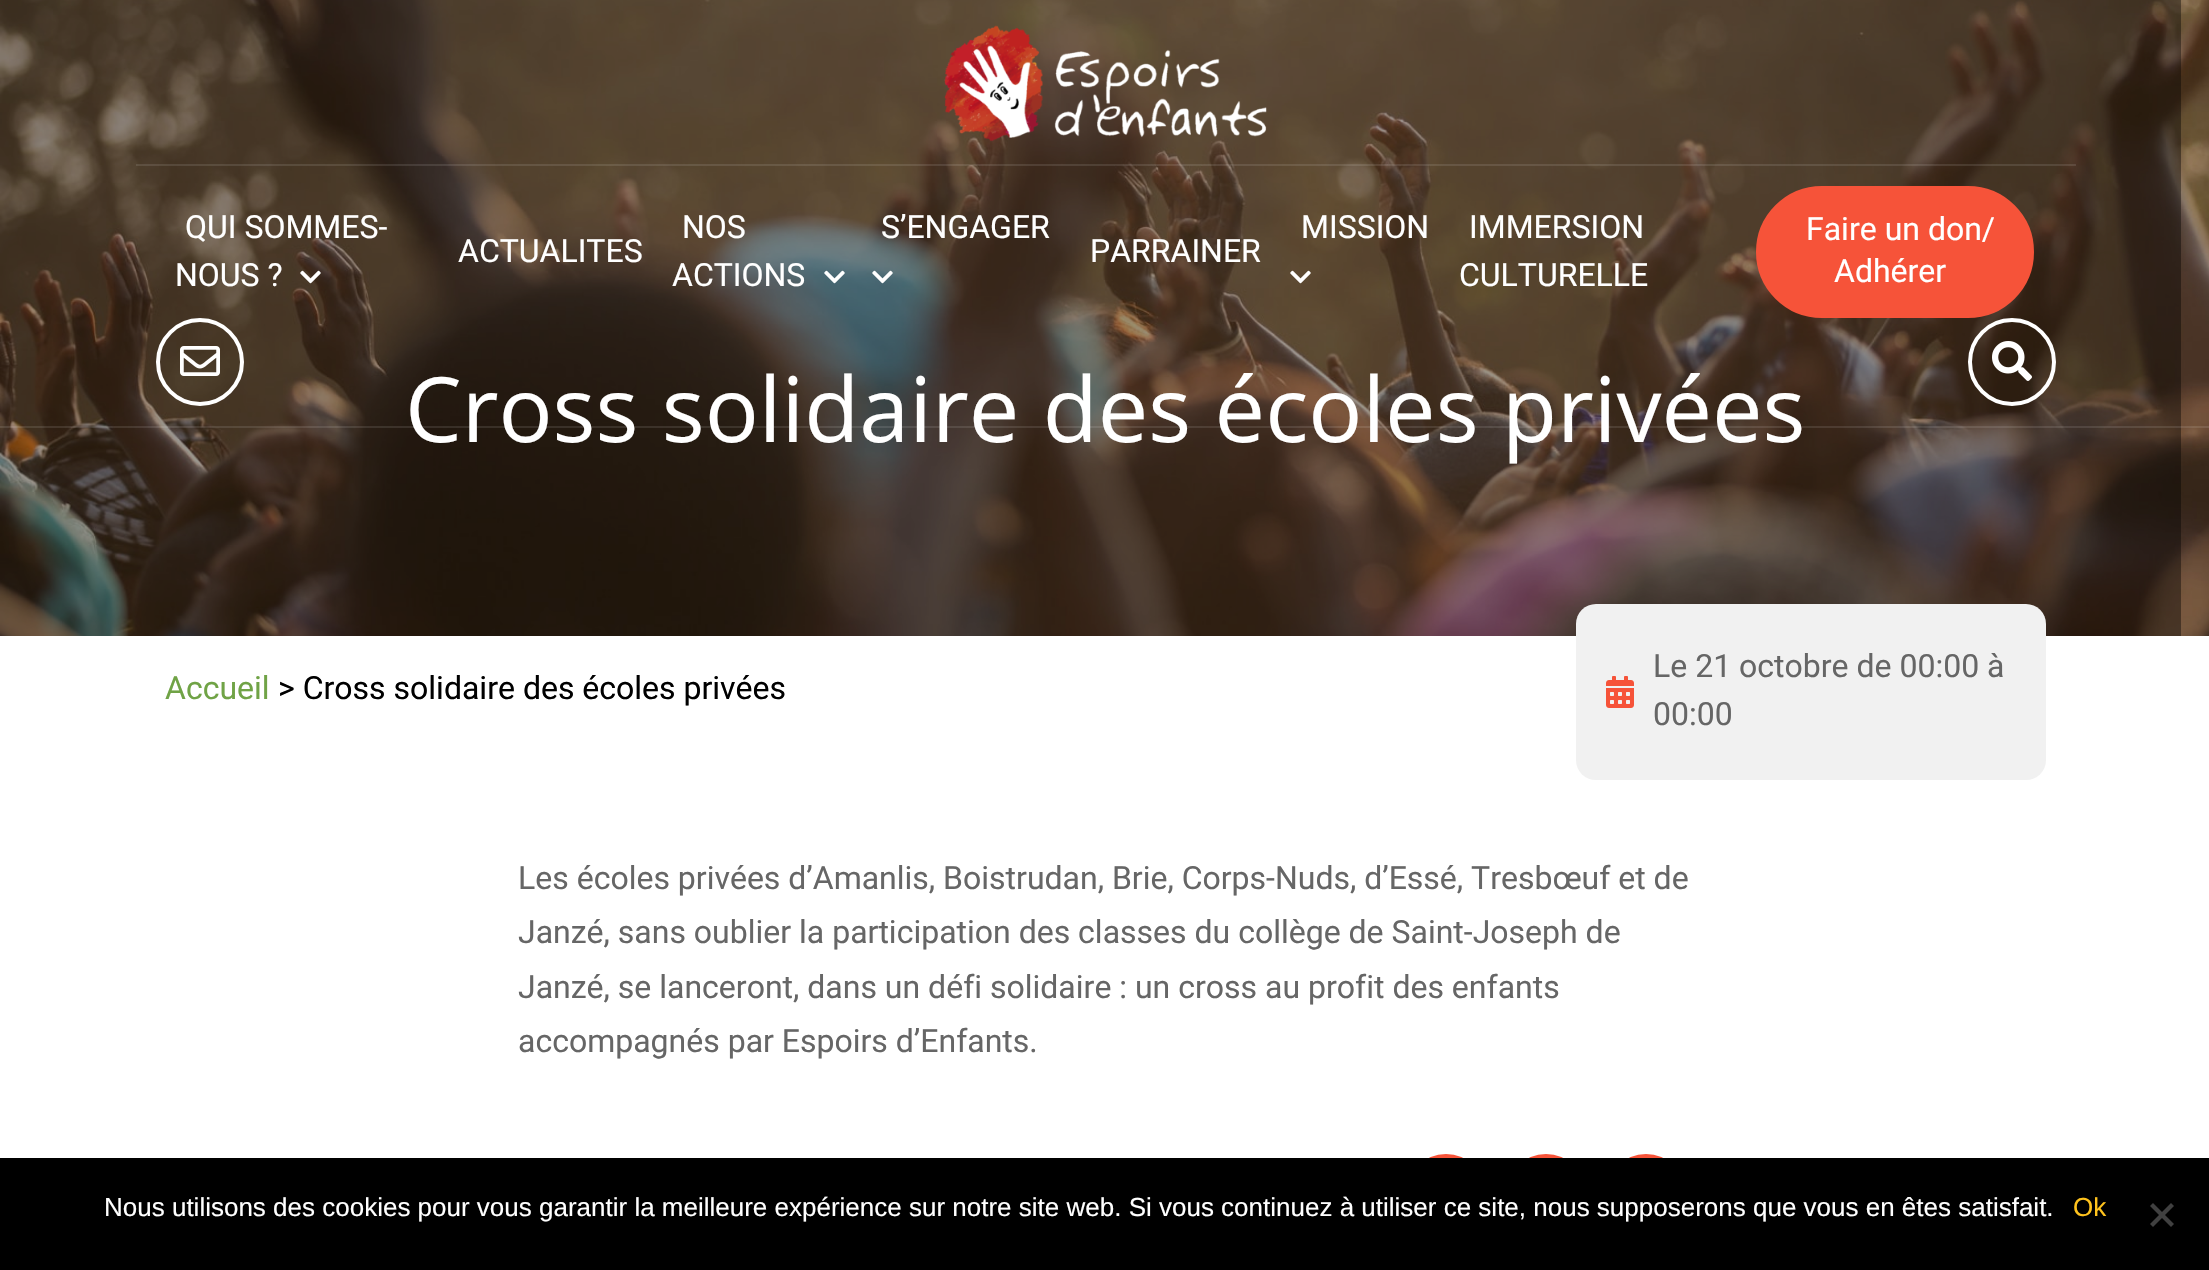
#include "include/core/SkBlurTypes.h"
#include "include/core/SkCanvas.h"
#include "include/core/SkData.h"
#include "include/core/SkFont.h"
#include "include/core/SkFontMgr.h"
#include "include/core/SkImage.h"
#include "include/core/SkMaskFilter.h"
#include "include/core/SkPaint.h"
#include "include/core/SkPathBuilder.h"
#include "include/core/SkTextBlob.h"
#include "include/effects/SkDashPathEffect.h"
#include "include/effects/SkGradientShader.h"
#include "include/utils/SkParsePath.h"

extern sk_sp<SkFontMgr> fontMgr;

void draw(SkCanvas* canvas) {
  SkPaint p;
  p.setAntiAlias(true);
  canvas->clear(SK_ColorWHITE);
  canvas->drawImageRect(SkImages::DeferredFromEncodedData(SkData::MakeFromFileName("images/8.png")), SkRect::MakeLTRB(2181, 0, 2209, 636), SkSamplingOptions());
  canvas->drawImageRect(SkImages::DeferredFromEncodedData(SkData::MakeFromFileName("images/9.png")), SkRect::MakeLTRB(0, 0, 2181, 636), SkSamplingOptions());
  p.setColor(SkColorSetARGB(26, 255, 255, 255));
  canvas->drawRect(SkRect::MakeLTRB(0, 426, 2209, 428), p);
  canvas->drawRect(SkRect::MakeLTRB(136, 164, 2076, 166), p);
  canvas->drawImageRect(SkImages::DeferredFromEncodedData(SkData::MakeFromFileName("images/1.png")), SkRect::MakeLTRB(944, 25, 1267, 142), SkSamplingOptions());
  canvas->drawImageRect(SkImages::DeferredFromEncodedData(SkData::MakeFromFileName("images/2.png")), SkRect::MakeLTRB(300, 270, 321, 284), SkSamplingOptions());
  canvas->drawImageRect(SkImages::DeferredFromEncodedData(SkData::MakeFromFileName("images/3.png")), SkRect::MakeLTRB(824, 270, 845, 284), SkSamplingOptions());
  canvas->drawImageRect(SkImages::DeferredFromEncodedData(SkData::MakeFromFileName("images/4.png")), SkRect::MakeLTRB(872, 270, 893, 284), SkSamplingOptions());
  canvas->drawImageRect(SkImages::DeferredFromEncodedData(SkData::MakeFromFileName("images/5.png")), SkRect::MakeLTRB(1290, 270, 1311, 284), SkSamplingOptions());
  p.setColor(SkColorSetRGB(246, 83, 57));
  canvas->drawRoundRect(SkRect::MakeLTRB(1758, 188, 2032, 316), 64, 64, p);
  p.setStyle(SkPaint::kStroke_Style);
  p.setStrokeWidth(4);
  canvas->drawRoundRect(SkRect::MakeLTRB(1758, 188, 2032, 316), 64, 64, p);
  p.setColor(SK_ColorWHITE);
  canvas->drawCircle(200, 362, 42, p);
  canvas->drawImageRect(SkImages::DeferredFromEncodedData(SkData::MakeFromFileName("images/6.png")), SkRect::MakeLTRB(180, 346, 220, 376), SkSamplingOptions());
  canvas->drawCircle(2012, 362, 42, p);
  canvas->drawImageRect(SkImages::DeferredFromEncodedData(SkData::MakeFromFileName("images/7.png")), SkRect::MakeLTRB(1992, 341, 2032, 381), SkSamplingOptions());
  p.setStyle(SkPaint::kFill_Style);
  p.setColor(SkColorSetRGB(241, 241, 241));
  canvas->drawRoundRect(SkRect::MakeLTRB(1576, 604, 2046, 780), 20, 20, p);
  canvas->drawImageRect(SkImages::DeferredFromEncodedData(SkData::MakeFromFileName("images/10.png")), SkRect::MakeLTRB(1606, 676, 1634, 708), SkSamplingOptions());
  p.setColor(SkColorSetRGB(246, 83, 57));
  canvas->drawCircle(1446, 1194, 40, p);
  canvas->drawCircle(1546, 1194, 40, p);
  canvas->drawCircle(1646, 1194, 40, p);
  p.setColor(SK_ColorBLACK);
  canvas->drawRect(SkRect::MakeLTRB(0, 1158, 2209, 1270), p);
  p.setColor(SkColorSetRGB(64, 64, 64));
  canvas->drawPath(SkPathBuilder().moveTo(2171, 1203).lineTo(2174, 1206).lineTo(2153, 1227).lineTo(2150, 1224).close().detach(), p);
  canvas->drawPath(SkPathBuilder().moveTo(2150, 1206).lineTo(2153, 1203).lineTo(2174, 1224).lineTo(2171, 1227).close().detach(), p);
  SkFont font1(fontMgr->matchFamilyStyle("Roboto", SkFontStyle::Normal()), 32);
  font1.setSubpixel(true);
  p.setColor(SK_ColorWHITE);
  canvas->drawString("QUI SOMMES-", 185, 238, font1, p);
  canvas->drawString("NOUS ?", 175, 286, font1, p);
  canvas->drawString("ACTUALITES", 458, 262, font1, p);
  canvas->drawString("NOS", 682, 238, font1, p);
  canvas->drawString("ACTIONS", 672, 286, font1, p);
  canvas->drawString("S’ENGAGER", 881, 238, font1, p);
  canvas->drawString("PARRAINER", 1090, 262, font1, p);
  canvas->drawString("MISSION", 1301, 238, font1, p);
  canvas->drawString("IMMERSION", 1469, 238, font1, p);
  canvas->drawString("CULTURELLE", 1459, 286, font1, p);
  canvas->drawString("Faire un don/", 1806, 240, font1, p);
  canvas->drawString("Adhérer", 1834, 282, font1, p);
  SkFont font2(fontMgr->matchFamilyStyle("Open Sans", SkFontStyle::Normal()), 90);
  font2.setSubpixel(true);
  canvas->drawString("Cross solidaire des écoles privées", 405, 442, font2, p);
  p.setColor(SkColorSetRGB(112, 163, 70));
  canvas->drawString("Accueil", 165, 699, font1, p);
  p.setColor(SK_ColorBLACK);
  canvas->drawString("> Cross solidaire des écoles privées", 278, 699, font1, p);
  p.setColor(SkColorSetRGB(102, 102, 102));
  canvas->drawString("Le 21 octobre de 00:00 à", 1653, 677, font1, p);
  canvas->drawString("00:00", 1653, 725, font1, p);
  canvas->drawString("Les écoles privées d’Amanlis, Boistrudan, Brie, Corps-Nuds, d’Essé, Tresbœuf et de", 518, 889, font1, p);
  canvas->drawString("Janzé, sans oublier la participation des classes du collège de Saint-Joseph de", 518, 943, font1, p);
  canvas->drawString("Janzé, se lanceront, dans un défi solidaire : un cross au profit des enfants", 518, 998, font1, p);
  canvas->drawString("accompagnés par Espoirs d’Enfants.", 518, 1052, font1, p);
  SkFont font3(fontMgr->matchFamilyStyle("Liberation Sans", SkFontStyle::Normal()), 26);
  font3.setSubpixel(true);
  p.setColor(SK_ColorWHITE);
  canvas->drawString("Nous utilisons des cookies pour vous garantir la meilleure expérience sur notre site web. Si vous continuez à utiliser ce site, nous supposerons que vous en êtes satisfait.", 104, 1216, font3, p);
  p.setColor(SkColorSetRGB(255, 195, 29));
  canvas->drawString("Ok", 2073, 1216, font3, p);
}
